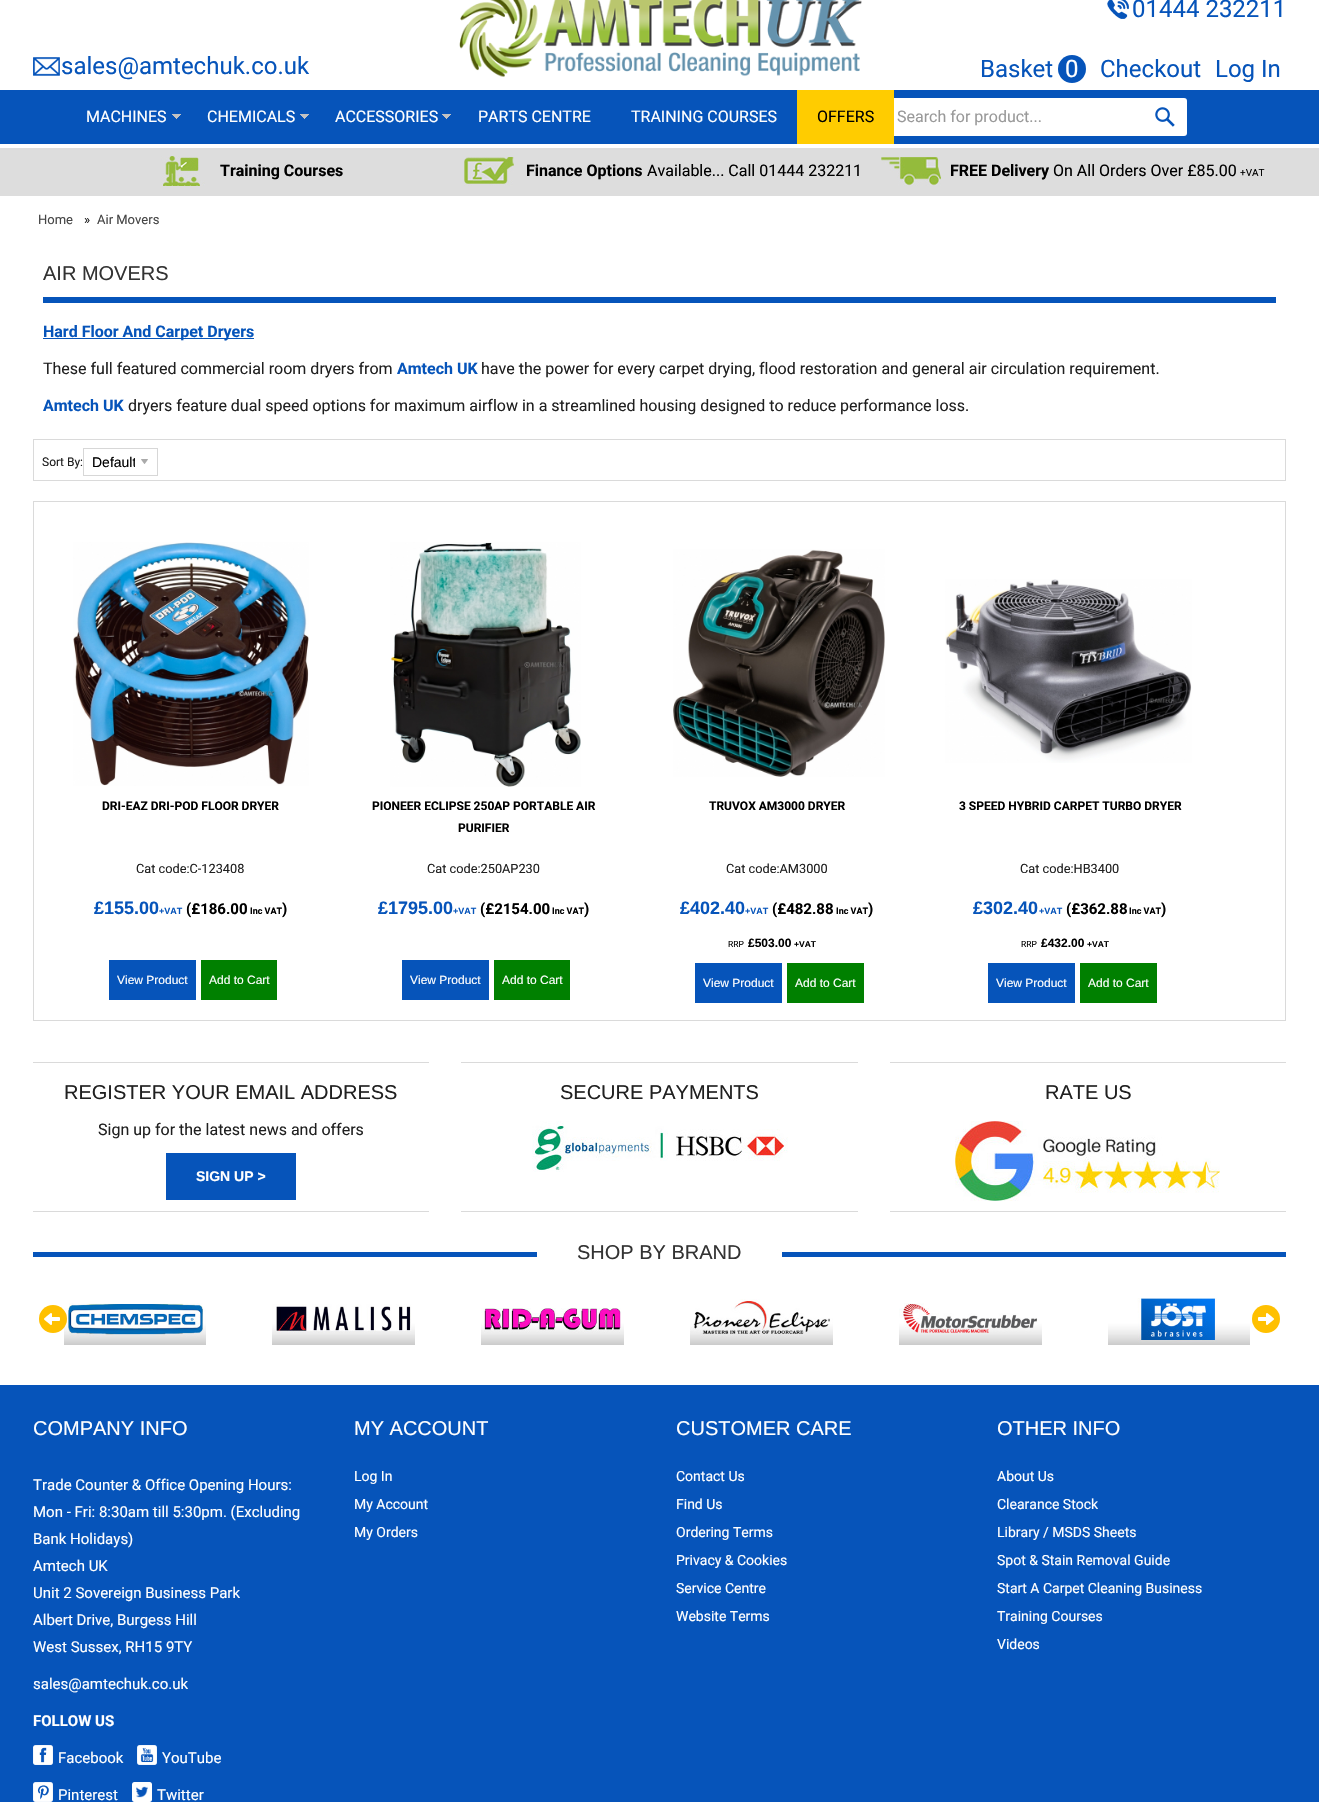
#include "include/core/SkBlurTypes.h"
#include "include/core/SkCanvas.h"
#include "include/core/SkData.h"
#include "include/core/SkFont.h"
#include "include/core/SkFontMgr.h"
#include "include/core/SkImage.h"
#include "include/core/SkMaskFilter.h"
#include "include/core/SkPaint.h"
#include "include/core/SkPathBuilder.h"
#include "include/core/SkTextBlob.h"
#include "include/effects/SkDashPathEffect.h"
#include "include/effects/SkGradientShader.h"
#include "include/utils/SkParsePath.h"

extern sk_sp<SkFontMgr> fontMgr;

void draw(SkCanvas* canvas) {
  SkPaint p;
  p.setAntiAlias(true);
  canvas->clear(SK_ColorWHITE);
  canvas->drawImageRect(SkImages::DeferredFromEncodedData(SkData::MakeFromFileName("images/1.png")), SkRect::MakeLTRB(459, 0, 862, 77), SkSamplingOptions());
  canvas->drawImageRect(SkImages::DeferredFromEncodedData(SkData::MakeFromFileName("images/2.png")), SkRect::MakeLTRB(1107, 0, 1129, 19), SkSamplingOptions());
  canvas->drawImageRect(SkImages::DeferredFromEncodedData(SkData::MakeFromFileName("images/3.png")), SkRect::MakeLTRB(33, 57, 60, 76), SkSamplingOptions());
  p.setColor(SkColorSetRGB(6, 84, 186));
  canvas->drawCircle(1072, 69, 14, p);
  canvas->drawRect(SkRect::MakeLTRB(0, 90, 1319, 144), p);
  canvas->drawImageRect(SkImages::DeferredFromEncodedData(SkData::MakeFromFileName("images/4.png")), SkRect::MakeLTRB(172, 114, 181, 119), SkSamplingOptions());
  canvas->drawImageRect(SkImages::DeferredFromEncodedData(SkData::MakeFromFileName("images/4.png")), SkRect::MakeLTRB(300, 114, 309, 119), SkSamplingOptions());
  canvas->drawImageRect(SkImages::DeferredFromEncodedData(SkData::MakeFromFileName("images/4.png")), SkRect::MakeLTRB(442, 114, 451, 119), SkSamplingOptions());
  p.setColor(SK_ColorWHITE);
  canvas->drawRoundRect(SkRect::MakeLTRB(887, 98, 1187, 136), 3, 3, p);
  p.setColor(SkColorSetRGB(255, 204, 0));
  canvas->drawRect(SkRect::MakeLTRB(797, 90, 894, 144), p);
  canvas->drawImageRect(SkImages::DeferredFromEncodedData(SkData::MakeFromFileName("images/5.png")), SkRect::MakeLTRB(1155, 107, 1175, 127), SkSamplingOptions());
  p.setColor(SkColorSetRGB(221, 221, 221));
  canvas->drawRect(SkRect::MakeLTRB(0, 148, 1319, 196), p);
  canvas->drawImageRect(SkImages::DeferredFromEncodedData(SkData::MakeFromFileName("images/6.png")), SkRect::MakeLTRB(161, 156, 205, 186), SkSamplingOptions());
  canvas->drawImageRect(SkImages::DeferredFromEncodedData(SkData::MakeFromFileName("images/7.png")), SkRect::MakeLTRB(464, 157, 514, 186), SkSamplingOptions());
  canvas->drawImageRect(SkImages::DeferredFromEncodedData(SkData::MakeFromFileName("images/8.png")), SkRect::MakeLTRB(881, 157, 941, 186), SkSamplingOptions());
  p.setColor(SkColorSetRGB(6, 84, 186));
  canvas->drawRect(SkRect::MakeLTRB(43, 297, 1276, 303), p);
  canvas->drawRect(SkRect::MakeLTRB(43, 338, 254, 339), p);
  p.setStyle(SkPaint::kStroke_Style);
  p.setStrokeWidth(1);
  p.setColor(SkColorSetRGB(218, 218, 218));
  canvas->drawRect(SkRect::MakeLTRB(33.5f, 439.5f, 1285.5f, 480.5f), p);
  p.setColor(SkColorSetRGB(215, 215, 215));
  canvas->drawRect(SkRect::MakeLTRB(83.5f, 448.5f, 157.5f, 475.5f), p);
  canvas->drawImageRect(SkImages::DeferredFromEncodedData(SkData::MakeFromFileName("images/9.png")), SkRect::MakeLTRB(141, 459, 148, 464), SkSamplingOptions());
  p.setColor(SkColorSetRGB(218, 218, 218));
  canvas->drawRect(SkRect::MakeLTRB(33.5f, 501.5f, 1285.5f, 1020.5f), p);
  canvas->drawImageRect(SkImages::DeferredFromEncodedData(SkData::MakeFromFileName("images/10.png")), SkRect::MakeLTRB(73, 542, 309, 786), SkSamplingOptions());
  p.setStyle(SkPaint::kFill_Style);
  p.setColor(SkColorSetRGB(6, 84, 186));
  canvas->drawRect(SkRect::MakeLTRB(109, 960, 196, 1000), p);
  p.setColor(SkColorSetRGB(0, 128, 0));
  canvas->drawRect(SkRect::MakeLTRB(201, 960, 277, 1000), p);
  canvas->drawImageRect(SkImages::DeferredFromEncodedData(SkData::MakeFromFileName("images/11.png")), SkRect::MakeLTRB(390, 542, 581, 787), SkSamplingOptions());
  p.setColor(SkColorSetRGB(6, 84, 186));
  canvas->drawRect(SkRect::MakeLTRB(402, 960, 489, 1000), p);
  p.setColor(SkColorSetRGB(0, 128, 0));
  canvas->drawRect(SkRect::MakeLTRB(494, 960, 570, 1000), p);
  canvas->drawImageRect(SkImages::DeferredFromEncodedData(SkData::MakeFromFileName("images/12.png")), SkRect::MakeLTRB(673, 549, 885, 777), SkSamplingOptions());
  p.setColor(SkColorSetRGB(6, 84, 186));
  canvas->drawRect(SkRect::MakeLTRB(695, 963, 782, 1003), p);
  p.setColor(SkColorSetRGB(0, 128, 0));
  canvas->drawRect(SkRect::MakeLTRB(787, 963, 864, 1003), p);
  canvas->drawImageRect(SkImages::DeferredFromEncodedData(SkData::MakeFromFileName("images/13.png")), SkRect::MakeLTRB(945, 579, 1192, 763), SkSamplingOptions());
  p.setColor(SkColorSetRGB(6, 84, 186));
  canvas->drawRect(SkRect::MakeLTRB(988, 963, 1075, 1003), p);
  p.setColor(SkColorSetRGB(0, 128, 0));
  canvas->drawRect(SkRect::MakeLTRB(1080, 963, 1157, 1003), p);
  p.setColor(SkColorSetRGB(218, 218, 218));
  canvas->drawRect(SkRect::MakeLTRB(33, 1062, 429, 1063), p);
  canvas->drawRect(SkRect::MakeLTRB(33, 1211, 429, 1212), p);
  p.setColor(SkColorSetRGB(6, 84, 186));
  canvas->drawRect(SkRect::MakeLTRB(166, 1153, 296, 1200), p);
  p.setColor(SkColorSetRGB(218, 218, 218));
  canvas->drawRect(SkRect::MakeLTRB(461, 1062, 858, 1063), p);
  canvas->drawRect(SkRect::MakeLTRB(461, 1211, 858, 1212), p);
  canvas->drawImageRect(SkImages::DeferredFromEncodedData(SkData::MakeFromFileName("images/14.png")), SkRect::MakeLTRB(532, 1121, 788, 1172), SkSamplingOptions());
  canvas->drawRect(SkRect::MakeLTRB(890, 1062, 1286, 1063), p);
  canvas->drawRect(SkRect::MakeLTRB(890, 1211, 1286, 1212), p);
  canvas->drawImageRect(SkImages::DeferredFromEncodedData(SkData::MakeFromFileName("images/15.png")), SkRect::MakeLTRB(955, 1121, 1220, 1201), SkSamplingOptions());
  p.setColor(SkColorSetRGB(6, 84, 186));
  canvas->drawRect(SkRect::MakeLTRB(33, 1252, 1286, 1257), p);
  p.setColor(SK_ColorWHITE);
  canvas->drawRect(SkRect::MakeLTRB(537, 1252, 782, 1257), p);
  canvas->drawImageRect(SkImages::DeferredFromEncodedData(SkData::MakeFromFileName("images/16.png")), SkRect::MakeLTRB(64, 1303, 206, 1345), SkSamplingOptions());
  canvas->drawImageRect(SkImages::DeferredFromEncodedData(SkData::MakeFromFileName("images/17.png")), SkRect::MakeLTRB(272, 1304, 415, 1345), SkSamplingOptions());
  canvas->drawImageRect(SkImages::DeferredFromEncodedData(SkData::MakeFromFileName("images/18.png")), SkRect::MakeLTRB(481, 1308, 624, 1345), SkSamplingOptions());
  canvas->drawImageRect(SkImages::DeferredFromEncodedData(SkData::MakeFromFileName("images/19.png")), SkRect::MakeLTRB(690, 1299, 833, 1345), SkSamplingOptions());
  canvas->drawImageRect(SkImages::DeferredFromEncodedData(SkData::MakeFromFileName("images/20.png")), SkRect::MakeLTRB(899, 1303, 1042, 1345), SkSamplingOptions());
  canvas->drawImageRect(SkImages::DeferredFromEncodedData(SkData::MakeFromFileName("images/21.png")), SkRect::MakeLTRB(1108, 1298, 1250, 1345), SkSamplingOptions());
  p.setColor(SkColorSetRGB(255, 192, 0));
  canvas->drawCircle(53, 1319, 14, p);
  canvas->drawImageRect(SkImages::DeferredFromEncodedData(SkData::MakeFromFileName("images/22.png")), SkRect::MakeLTRB(44, 1313, 60, 1325), SkSamplingOptions());
  canvas->drawCircle(1266, 1319, 14, p);
  canvas->drawImageRect(SkImages::DeferredFromEncodedData(SkData::MakeFromFileName("images/23.png")), SkRect::MakeLTRB(1258, 1313, 1274, 1325), SkSamplingOptions());
  p.setColor(SkColorSetRGB(6, 84, 186));
  canvas->drawRect(SkRect::MakeLTRB(0, 1385, 1319, 1802), p);
  canvas->drawImageRect(SkImages::DeferredFromEncodedData(SkData::MakeFromFileName("images/24.png")), SkRect::MakeLTRB(33, 1745, 53, 1765), SkSamplingOptions());
  canvas->drawImageRect(SkImages::DeferredFromEncodedData(SkData::MakeFromFileName("images/25.png")), SkRect::MakeLTRB(137, 1745, 157, 1765), SkSamplingOptions());
  canvas->drawImageRect(SkImages::DeferredFromEncodedData(SkData::MakeFromFileName("images/26.png")), SkRect::MakeLTRB(33, 1782, 53, 1802), SkSamplingOptions());
  canvas->drawImageRect(SkImages::DeferredFromEncodedData(SkData::MakeFromFileName("images/27.png")), SkRect::MakeLTRB(132, 1782, 152, 1802), SkSamplingOptions());
  SkFont font1(fontMgr->matchFamilyStyle("Roboto", SkFontStyle::Normal()), 24);
  font1.setSubpixel(true);
  canvas->drawString("01444 232211", 1132, 17, font1, p);
  canvas->drawString("sales@amtechuk.co.uk", 61, 74, font1, p);
  canvas->drawString("Basket", 980, 77, font1, p);
  p.setColor(SK_ColorWHITE);
  canvas->drawString("0", 1065, 77, font1, p);
  p.setColor(SkColorSetRGB(6, 84, 186));
  canvas->drawString("Checkout", 1100, 77, font1, p);
  canvas->drawString("Log In", 1215, 77, font1, p);
  SkFont font2(fontMgr->matchFamilyStyle("Roboto", SkFontStyle::Normal()), 16);
  font2.setSubpixel(true);
  p.setColor(SK_ColorWHITE);
  canvas->drawString("MACHINES", 86, 122, font2, p);
  canvas->drawString("CHEMICALS", 207, 122, font2, p);
  canvas->drawString("ACCESSORIES", 335, 122, font2, p);
  canvas->drawString("PARTS CENTRE", 478, 122, font2, p);
  canvas->drawString("TRAINING COURSES", 631, 122, font2, p);
  p.setColor(SK_ColorBLACK);
  canvas->drawString("OFFERS", 817, 122, font2, p);
  p.setColor(SkColorSetRGB(153, 153, 153));
  canvas->drawString("Search for product...", 897, 122, font2, p);
  SkFont font3(fontMgr->matchFamilyStyle("Roboto", SkFontStyle::Bold()), 16);
  font3.setSubpixel(true);
  p.setColor(SK_ColorBLACK);
  canvas->drawString("Training Courses", 220, 176, font3, p);
  canvas->drawString("Finance Options", 526, 176, font3, p);
  canvas->drawString("Available... Call 01444 232211", 647, 176, font2, p);
  canvas->drawString("FREE Delivery", 950, 176, font3, p);
  canvas->drawString("On All Orders Over £85.00", 1053, 176, font2, p);
  SkFont font4(fontMgr->matchFamilyStyle("Roboto", SkFontStyle::Normal()), 10);
  font4.setSubpixel(true);
  canvas->drawString("+VAT", 1240, 176, font4, p);
  SkFont font5(fontMgr->matchFamilyStyle("Roboto", SkFontStyle::Normal()), 13);
  font5.setSubpixel(true);
  p.setColor(SkColorSetRGB(69, 69, 69));
  canvas->drawString("Home", 38, 224, font5, p);
  p.setColor(SkColorSetRGB(32, 32, 32));
  canvas->drawString("»", 84, 224, font5, p);
  p.setColor(SkColorSetRGB(69, 69, 69));
  canvas->drawString("Air Movers", 97, 224, font5, p);
  SkFont font6(fontMgr->matchFamilyStyle("Liberation Sans", SkFontStyle::Normal()), 20);
  font6.setSubpixel(true);
  p.setColor(SkColorSetRGB(51, 51, 51));
  canvas->drawString("AIR MOVERS", 43, 280, font6, p);
  p.setColor(SkColorSetRGB(6, 84, 186));
  canvas->drawString("Hard Floor And Carpet Dryers", 43, 337, font3, p);
  p.setColor(SkColorSetRGB(32, 32, 32));
  canvas->drawString("These full featured commercial room dryers from", 43, 374, font2, p);
  p.setColor(SkColorSetRGB(6, 84, 186));
  canvas->drawString("Amtech UK", 397, 374, font3, p);
  p.setColor(SkColorSetRGB(32, 32, 32));
  canvas->drawString("have the power for every carpet drying, flood restoration and general air circulation requirement.", 481, 374, font2, p);
  p.setColor(SkColorSetRGB(6, 84, 186));
  canvas->drawString("Amtech UK", 43, 411, font3, p);
  p.setColor(SkColorSetRGB(32, 32, 32));
  canvas->drawString("dryers feature dual speed options for maximum airflow in a streamlined housing designed to reduce performance loss.", 128, 411, font2, p);
  SkFont font7(fontMgr->matchFamilyStyle("Roboto", SkFontStyle::Normal()), 12);
  font7.setSubpixel(true);
  canvas->drawString("Sort By:", 42, 466, font7, p);
  SkFont font8(fontMgr->matchFamilyStyle("Liberation Sans", SkFontStyle::Normal()), 14);
  font8.setSubpixel(true);
  p.setColor(SK_ColorBLACK);
  canvas->drawString("Default", 92, 467, font8, p);
  p.setColor(SK_ColorWHITE);
  canvas->drawRect(SkRect::MakeLTRB(135, 459, 137, 468), p);
  SkFont font9(fontMgr->matchFamilyStyle("Roboto", SkFontStyle::Bold()), 12);
  font9.setSubpixel(true);
  p.setColor(SK_ColorBLACK);
  canvas->drawString("DRI-EAZ DRI-POD FLOOR DRYER", 102, 810, font9, p);
  SkFont font10(fontMgr->matchFamilyStyle("Roboto", SkFontStyle::Normal()), 12.75f);
  font10.setSubpixel(true);
  p.setColor(SkColorSetRGB(32, 32, 32));
  canvas->drawString("Cat code:C-123408", 136, 873, font10, p);
  SkFont font11(fontMgr->matchFamilyStyle("Liberation Sans", SkFontStyle::Bold()), 18);
  font11.setSubpixel(true);
  p.setColor(SkColorSetRGB(6, 84, 186));
  canvas->drawString("£155.00", 94, 914, font11, p);
  SkFont font12(fontMgr->matchFamilyStyle("Liberation Sans", SkFontStyle::Bold()), 9);
  font12.setSubpixel(true);
  canvas->drawString("+VAT", 159, 914, font12, p);
  SkFont font13(fontMgr->matchFamilyStyle("Roboto", SkFontStyle::Bold()), 15);
  font13.setSubpixel(true);
  p.setColor(SK_ColorBLACK);
  canvas->drawString("(£186.00", 186, 914, font13, p);
  SkFont font14(fontMgr->matchFamilyStyle("Roboto", SkFontStyle::Bold()), 9);
  font14.setSubpixel(true);
  canvas->drawString("Inc VAT", 250, 914, font14, p);
  canvas->drawString(")", 282, 914, font13, p);
  SkFont font15(fontMgr->matchFamilyStyle("Liberation Sans", SkFontStyle::Normal()), 12);
  font15.setSubpixel(true);
  p.setColor(SK_ColorWHITE);
  canvas->drawString("View Product", 117, 984, font15, p);
  canvas->drawString("Add to Cart", 209, 984, font15, p);
  p.setColor(SK_ColorBLACK);
  canvas->drawString("PIONEER ECLIPSE 250AP PORTABLE AIR", 372, 810, font9, p);
  canvas->drawString("PURIFIER", 458, 832, font9, p);
  p.setColor(SkColorSetRGB(32, 32, 32));
  canvas->drawString("Cat code:250AP230", 427, 873, font10, p);
  p.setColor(SkColorSetRGB(6, 84, 186));
  canvas->drawString("£1795.00", 378, 914, font11, p);
  canvas->drawString("+VAT", 453, 914, font12, p);
  p.setColor(SK_ColorBLACK);
  canvas->drawString("(£2154.00", 480, 914, font13, p);
  canvas->drawString("Inc VAT", 552, 914, font14, p);
  canvas->drawString(")", 584, 914, font13, p);
  p.setColor(SK_ColorWHITE);
  canvas->drawString("View Product", 410, 984, font15, p);
  canvas->drawString("Add to Cart", 502, 984, font15, p);
  p.setColor(SK_ColorBLACK);
  canvas->drawString("TRUVOX AM3000 DRYER", 709, 810, font9, p);
  p.setColor(SkColorSetRGB(32, 32, 32));
  canvas->drawString("Cat code:AM3000", 726, 873, font10, p);
  p.setColor(SkColorSetRGB(6, 84, 186));
  canvas->drawString("£402.40", 680, 914, font11, p);
  canvas->drawString("+VAT", 745, 914, font12, p);
  p.setColor(SK_ColorBLACK);
  canvas->drawString("(£482.88", 772, 914, font13, p);
  canvas->drawString("Inc VAT", 836, 914, font14, p);
  canvas->drawString(")", 868, 914, font13, p);
  SkFont font16(fontMgr->matchFamilyStyle("Roboto", SkFontStyle::Normal()), 8.5f);
  font16.setSubpixel(true);
  canvas->drawString("RRP", 728, 947, font16, p);
  SkFont font17(fontMgr->matchFamilyStyle("Liberation Sans", SkFontStyle::Bold()), 12);
  font17.setSubpixel(true);
  canvas->drawString("£503.00", 748, 947, font17, p);
  SkFont font18(fontMgr->matchFamilyStyle("Liberation Sans", SkFontStyle::Bold()), 8.5f);
  font18.setSubpixel(true);
  canvas->drawString("+VAT", 794, 947, font18, p);
  p.setColor(SK_ColorWHITE);
  canvas->drawString("View Product", 703, 987, font15, p);
  canvas->drawString("Add to Cart", 795, 987, font15, p);
  p.setColor(SK_ColorBLACK);
  canvas->drawString("3 SPEED HYBRID CARPET TURBO DRYER", 959, 810, font9, p);
  p.setColor(SkColorSetRGB(32, 32, 32));
  canvas->drawString("Cat code:HB3400", 1020, 873, font10, p);
  p.setColor(SkColorSetRGB(6, 84, 186));
  canvas->drawString("£302.40", 973, 914, font11, p);
  canvas->drawString("+VAT", 1039, 914, font12, p);
  p.setColor(SK_ColorBLACK);
  canvas->drawString("(£362.88", 1066, 914, font13, p);
  canvas->drawString("Inc VAT", 1129, 914, font14, p);
  canvas->drawString(")", 1161, 914, font13, p);
  canvas->drawString("RRP", 1021, 947, font16, p);
  canvas->drawString("£432.00", 1041, 947, font17, p);
  canvas->drawString("+VAT", 1087, 947, font18, p);
  p.setColor(SK_ColorWHITE);
  canvas->drawString("View Product", 996, 987, font15, p);
  canvas->drawString("Add to Cart", 1088, 987, font15, p);
  p.setColor(SkColorSetRGB(32, 32, 32));
  canvas->drawString("REGISTER YOUR EMAIL ADDRESS", 64, 1099, font6, p);
  canvas->drawString("Sign up for the latest news and offers", 98, 1135, font2, p);
  SkFont font19(fontMgr->matchFamilyStyle("Liberation Sans", SkFontStyle::Bold()), 14);
  font19.setSubpixel(true);
  p.setColor(SK_ColorWHITE);
  canvas->drawString("SIGN UP >", 196, 1181, font19, p);
  p.setColor(SkColorSetRGB(32, 32, 32));
  canvas->drawString("SECURE PAYMENTS", 560, 1099, font6, p);
  canvas->drawString("RATE US", 1045, 1099, font6, p);
  p.setColor(SkColorSetRGB(51, 51, 51));
  canvas->drawString("SHOP BY BRAND", 577, 1259, font6, p);
  p.setColor(SK_ColorWHITE);
  canvas->drawString("COMPANY INFO", 33, 1435, font6, p);
  SkFont font20(fontMgr->matchFamilyStyle("Roboto", SkFontStyle::Normal()), 15);
  font20.setSubpixel(true);
  canvas->drawString("Trade Counter & Office Opening Hours:", 33, 1490, font20, p);
  canvas->drawString("Mon - Fri: 8:30am till 5:30pm. (Excluding", 33, 1517, font20, p);
  canvas->drawString("Bank Holidays)", 33, 1544, font20, p);
  canvas->drawString("Amtech UK", 33, 1571, font20, p);
  canvas->drawString("Unit 2 Sovereign Business Park", 33, 1598, font20, p);
  canvas->drawString("Albert Drive, Burgess Hill", 33, 1625, font20, p);
  canvas->drawString("West Sussex, RH15 9TY", 33, 1652, font20, p);
  canvas->drawString("sales@amtechuk.co.uk", 33, 1689, font20, p);
  canvas->drawString("FOLLOW US", 33, 1726, font13, p);
  canvas->drawString("Facebook", 58, 1763, font20, p);
  canvas->drawString("YouTube", 162, 1763, font20, p);
  canvas->drawString("Pinterest", 58, 1800, font20, p);
  canvas->drawString("Twitter", 157, 1800, font20, p);
  canvas->drawString("MY ACCOUNT", 354, 1435, font6, p);
  SkFont font21(fontMgr->matchFamilyStyle("Roboto", SkFontStyle::Normal()), 14);
  font21.setSubpixel(true);
  canvas->drawString("Log In", 354, 1481, font21, p);
  canvas->drawString("My Account", 354, 1509, font21, p);
  canvas->drawString("My Orders", 354, 1537, font21, p);
  canvas->drawString("CUSTOMER CARE", 676, 1435, font6, p);
  canvas->drawString("Contact Us", 676, 1481, font21, p);
  canvas->drawString("Find Us", 676, 1509, font21, p);
  canvas->drawString("Ordering Terms", 676, 1537, font21, p);
  canvas->drawString("Privacy & Cookies", 676, 1565, font21, p);
  canvas->drawString("Service Centre", 676, 1593, font21, p);
  canvas->drawString("Website Terms", 676, 1621, font21, p);
  canvas->drawString("OTHER INFO", 997, 1435, font6, p);
  canvas->drawString("About Us", 997, 1481, font21, p);
  canvas->drawString("Clearance Stock", 997, 1509, font21, p);
  canvas->drawString("Library / MSDS Sheets", 997, 1537, font21, p);
  canvas->drawString("Spot & Stain Removal Guide", 997, 1565, font21, p);
  canvas->drawString("Start A Carpet Cleaning Business", 997, 1593, font21, p);
  canvas->drawString("Training Courses", 997, 1621, font21, p);
  canvas->drawString("Videos", 997, 1649, font21, p);
}
